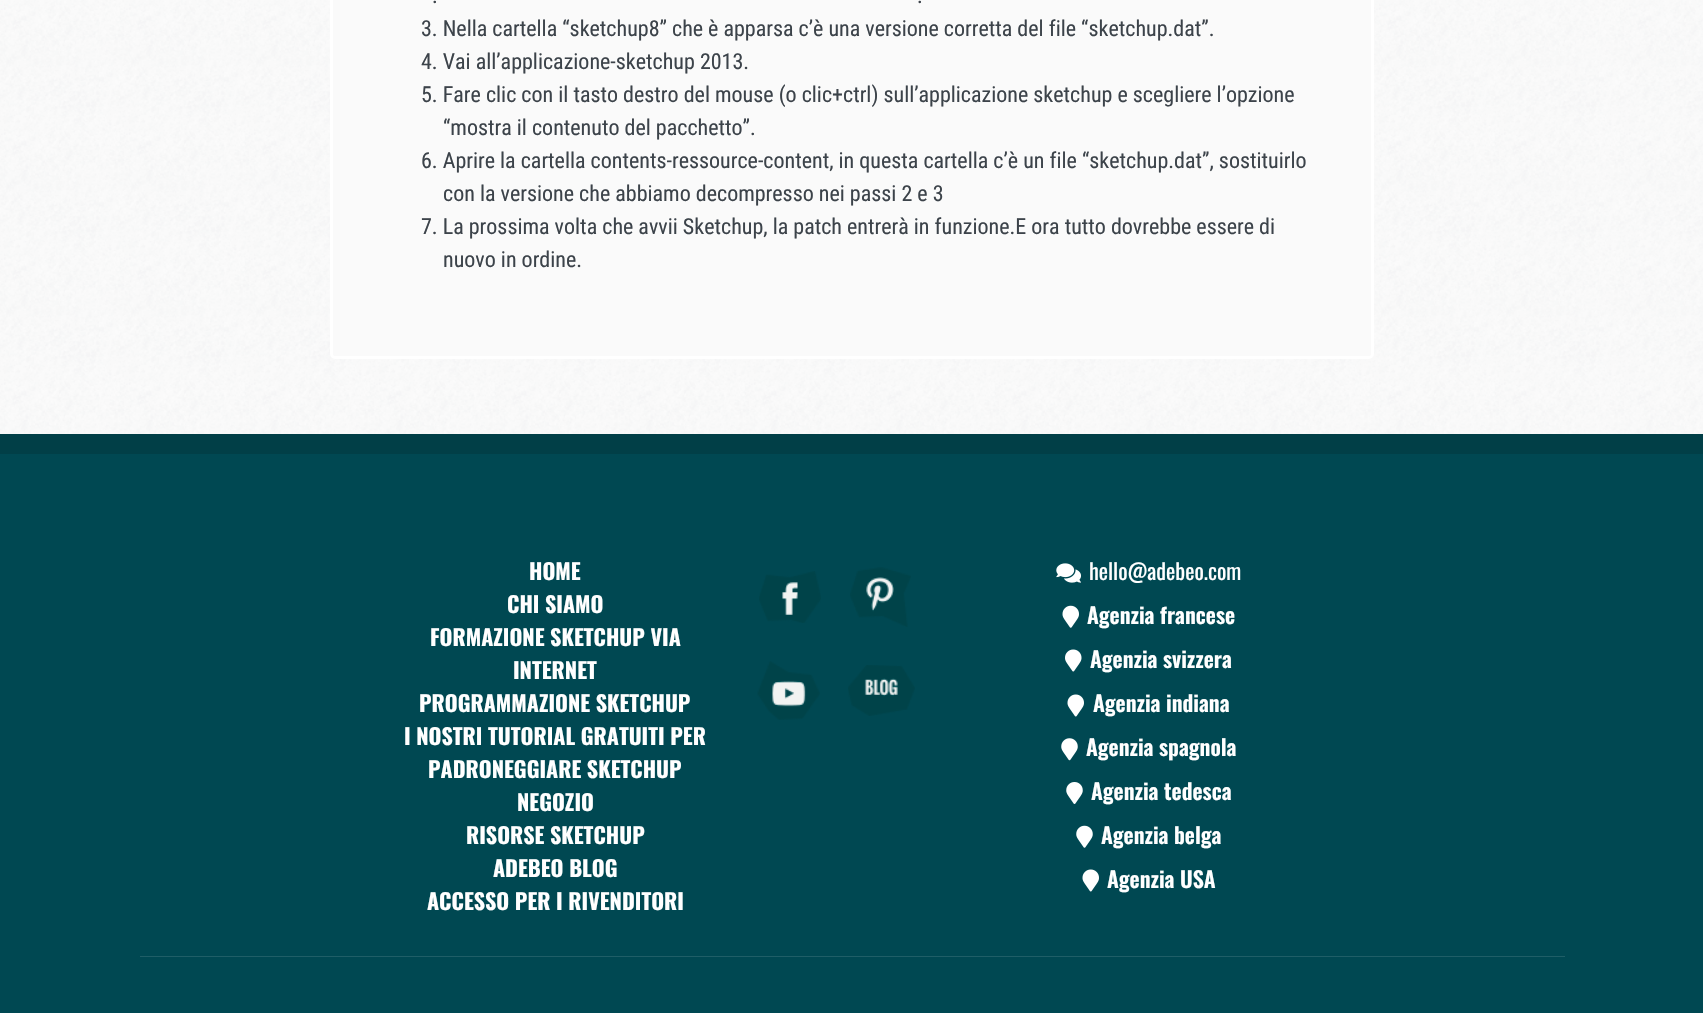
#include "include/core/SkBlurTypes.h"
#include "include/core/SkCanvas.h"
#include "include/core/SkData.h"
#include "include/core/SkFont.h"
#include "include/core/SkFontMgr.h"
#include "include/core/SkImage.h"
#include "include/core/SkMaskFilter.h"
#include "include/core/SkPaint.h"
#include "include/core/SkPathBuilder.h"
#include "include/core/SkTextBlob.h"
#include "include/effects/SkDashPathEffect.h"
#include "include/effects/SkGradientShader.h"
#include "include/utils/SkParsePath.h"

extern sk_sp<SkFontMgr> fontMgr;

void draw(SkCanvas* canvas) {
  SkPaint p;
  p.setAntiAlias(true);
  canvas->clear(SK_ColorWHITE);
  canvas->drawImageRect(SkImages::DeferredFromEncodedData(SkData::MakeFromFileName("images/1.png")), SkRect::MakeLTRB(0, 0, 1703, 434), SkSamplingOptions());
  p.setColor(SkColorSetRGB(250, 250, 250));
  canvas->drawRoundRect(SkRect::MakeLTRB(331.5f, -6.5f, 1372.5f, 357.5f), 3.5f, 3.5f, p);
  p.setStyle(SkPaint::kStroke_Style);
  p.setStrokeWidth(3);
  p.setColor(SK_ColorWHITE);
  canvas->drawRoundRect(SkRect::MakeLTRB(331.5f, -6.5f, 1372.5f, 357.5f), 3.5f, 3.5f, p);
  p.setStyle(SkPaint::kFill_Style);
  p.setColor(SkColorSetRGB(0, 72, 82));
  canvas->drawRect(SkRect::MakeLTRB(0, 454, 1703, 1013), p);
  p.setColor(SkColorSetRGB(1, 63, 71));
  canvas->drawRect(SkRect::MakeLTRB(0, 434, 1703, 454), p);
  canvas->drawImageRect(SkImages::DeferredFromEncodedData(SkData::MakeFromFileName("images/2.png")), SkRect::MakeLTRB(759, 571, 821, 623), SkSamplingOptions());
  canvas->drawImageRect(SkImages::DeferredFromEncodedData(SkData::MakeFromFileName("images/3.png")), SkRect::MakeLTRB(850, 567, 911, 627), SkSamplingOptions());
  canvas->drawImageRect(SkImages::DeferredFromEncodedData(SkData::MakeFromFileName("images/4.png")), SkRect::MakeLTRB(757, 661, 820, 720), SkSamplingOptions());
  canvas->drawImageRect(SkImages::DeferredFromEncodedData(SkData::MakeFromFileName("images/5.png")), SkRect::MakeLTRB(848, 665, 915, 716), SkSamplingOptions());
  canvas->drawImageRect(SkImages::DeferredFromEncodedData(SkData::MakeFromFileName("images/6.png")), SkRect::MakeLTRB(1056, 563, 1081, 583), SkSamplingOptions());
  canvas->drawImageRect(SkImages::DeferredFromEncodedData(SkData::MakeFromFileName("images/7.png")), SkRect::MakeLTRB(1062, 605, 1079, 628), SkSamplingOptions());
  canvas->drawImageRect(SkImages::DeferredFromEncodedData(SkData::MakeFromFileName("images/8.png")), SkRect::MakeLTRB(1065, 649, 1082, 672), SkSamplingOptions());
  canvas->drawImageRect(SkImages::DeferredFromEncodedData(SkData::MakeFromFileName("images/9.png")), SkRect::MakeLTRB(1067, 694, 1084, 717), SkSamplingOptions());
  canvas->drawImageRect(SkImages::DeferredFromEncodedData(SkData::MakeFromFileName("images/10.png")), SkRect::MakeLTRB(1061, 738, 1078, 761), SkSamplingOptions());
  canvas->drawImageRect(SkImages::DeferredFromEncodedData(SkData::MakeFromFileName("images/11.png")), SkRect::MakeLTRB(1066, 782, 1083, 804), SkSamplingOptions());
  canvas->drawImageRect(SkImages::DeferredFromEncodedData(SkData::MakeFromFileName("images/12.png")), SkRect::MakeLTRB(1076, 825, 1093, 848), SkSamplingOptions());
  canvas->drawImageRect(SkImages::DeferredFromEncodedData(SkData::MakeFromFileName("images/9.png")), SkRect::MakeLTRB(1082, 869, 1099, 892), SkSamplingOptions());
  p.setColor(SkColorSetRGB(31, 94, 103));
  canvas->drawRect(SkRect::MakeLTRB(140, 956, 1565, 957), p);
  SkFont font1(fontMgr->matchFamilyStyle("Roboto Condensed", SkFontStyle::Normal()), 22);
  font1.setSubpixel(true);
  p.setColor(SkColorSetRGB(60, 67, 74));
  canvas->drawString(".", 432, 3, font1, p);
  canvas->drawString(".", 917, 3, font1, p);
  canvas->drawString("3. Nella cartella “sketchup8” che è apparsa c’è una versione corretta del file “sketchup.dat”.", 421, 36, font1, p);
  canvas->drawString("4. Vai all’applicazione-sketchup 2013.", 421, 69, font1, p);
  canvas->drawString("5. Fare clic con il tasto destro del mouse (o clic+ctrl) sull’applicazione sketchup e scegliere l’opzione", 421, 102, font1, p);
  canvas->drawString("“mostra il contenuto del pacchetto”.", 443, 135, font1, p);
  canvas->drawString("6. Aprire la cartella contents-ressource-content, in questa cartella c’è un file “sketchup.dat”, sostituirlo", 421, 168, font1, p);
  canvas->drawString("con la versione che abbiamo decompresso nei passi 2 e 3", 443, 201, font1, p);
  canvas->drawString("7. La prossima volta che avvii Sketchup, la patch entrerà in funzione.E ora tutto dovrebbe essere di", 421, 234, font1, p);
  canvas->drawString("nuovo in ordine.", 443, 267, font1, p);
  SkFont font2(fontMgr->matchFamilyStyle("Oswald", SkFontStyle::Bold()), 22);
  font2.setSubpixel(true);
  p.setColor(SK_ColorWHITE);
  canvas->drawString("HOME", 529, 580, font2, p);
  canvas->drawString("CHI SIAMO", 507, 613, font2, p);
  canvas->drawString("FORMAZIONE SKETCHUP VIA", 430, 646, font2, p);
  canvas->drawString("INTERNET", 513, 679, font2, p);
  canvas->drawString("PROGRAMMAZIONE SKETCHUP", 419, 712, font2, p);
  canvas->drawString("I NOSTRI TUTORIAL GRATUITI PER", 404, 745, font2, p);
  canvas->drawString("PADRONEGGIARE SKETCHUP", 428, 778, font2, p);
  canvas->drawString("NEGOZIO", 517, 811, font2, p);
  canvas->drawString("RISORSE SKETCHUP", 466, 844, font2, p);
  canvas->drawString("ADEBEO BLOG", 493, 877, font2, p);
  canvas->drawString("ACCESSO PER I RIVENDITORI", 427, 910, font2, p);
  SkFont font3(fontMgr->matchFamilyStyle("Oswald", SkFontStyle::Normal()), 22);
  font3.setSubpixel(true);
  canvas->drawString("hello@adebeo.com", 1089, 580, font3, p);
  SkFont font4(fontMgr->matchFamilyStyle("Oswald", SkFontStyle(600, SkFontStyle::kNormal_Width, SkFontStyle::kUpright_Slant)), 22);
  font4.setSubpixel(true);
  canvas->drawString("Agenzia francese", 1087, 624, font4, p);
  canvas->drawString("Agenzia svizzera", 1090, 668, font4, p);
  canvas->drawString("Agenzia indiana", 1093, 712, font4, p);
  canvas->drawString("Agenzia spagnola", 1086, 756, font4, p);
  canvas->drawString("Agenzia tedesca", 1091, 800, font4, p);
  canvas->drawString("Agenzia belga", 1101, 844, font4, p);
  canvas->drawString("Agenzia USA", 1107, 888, font4, p);
}
